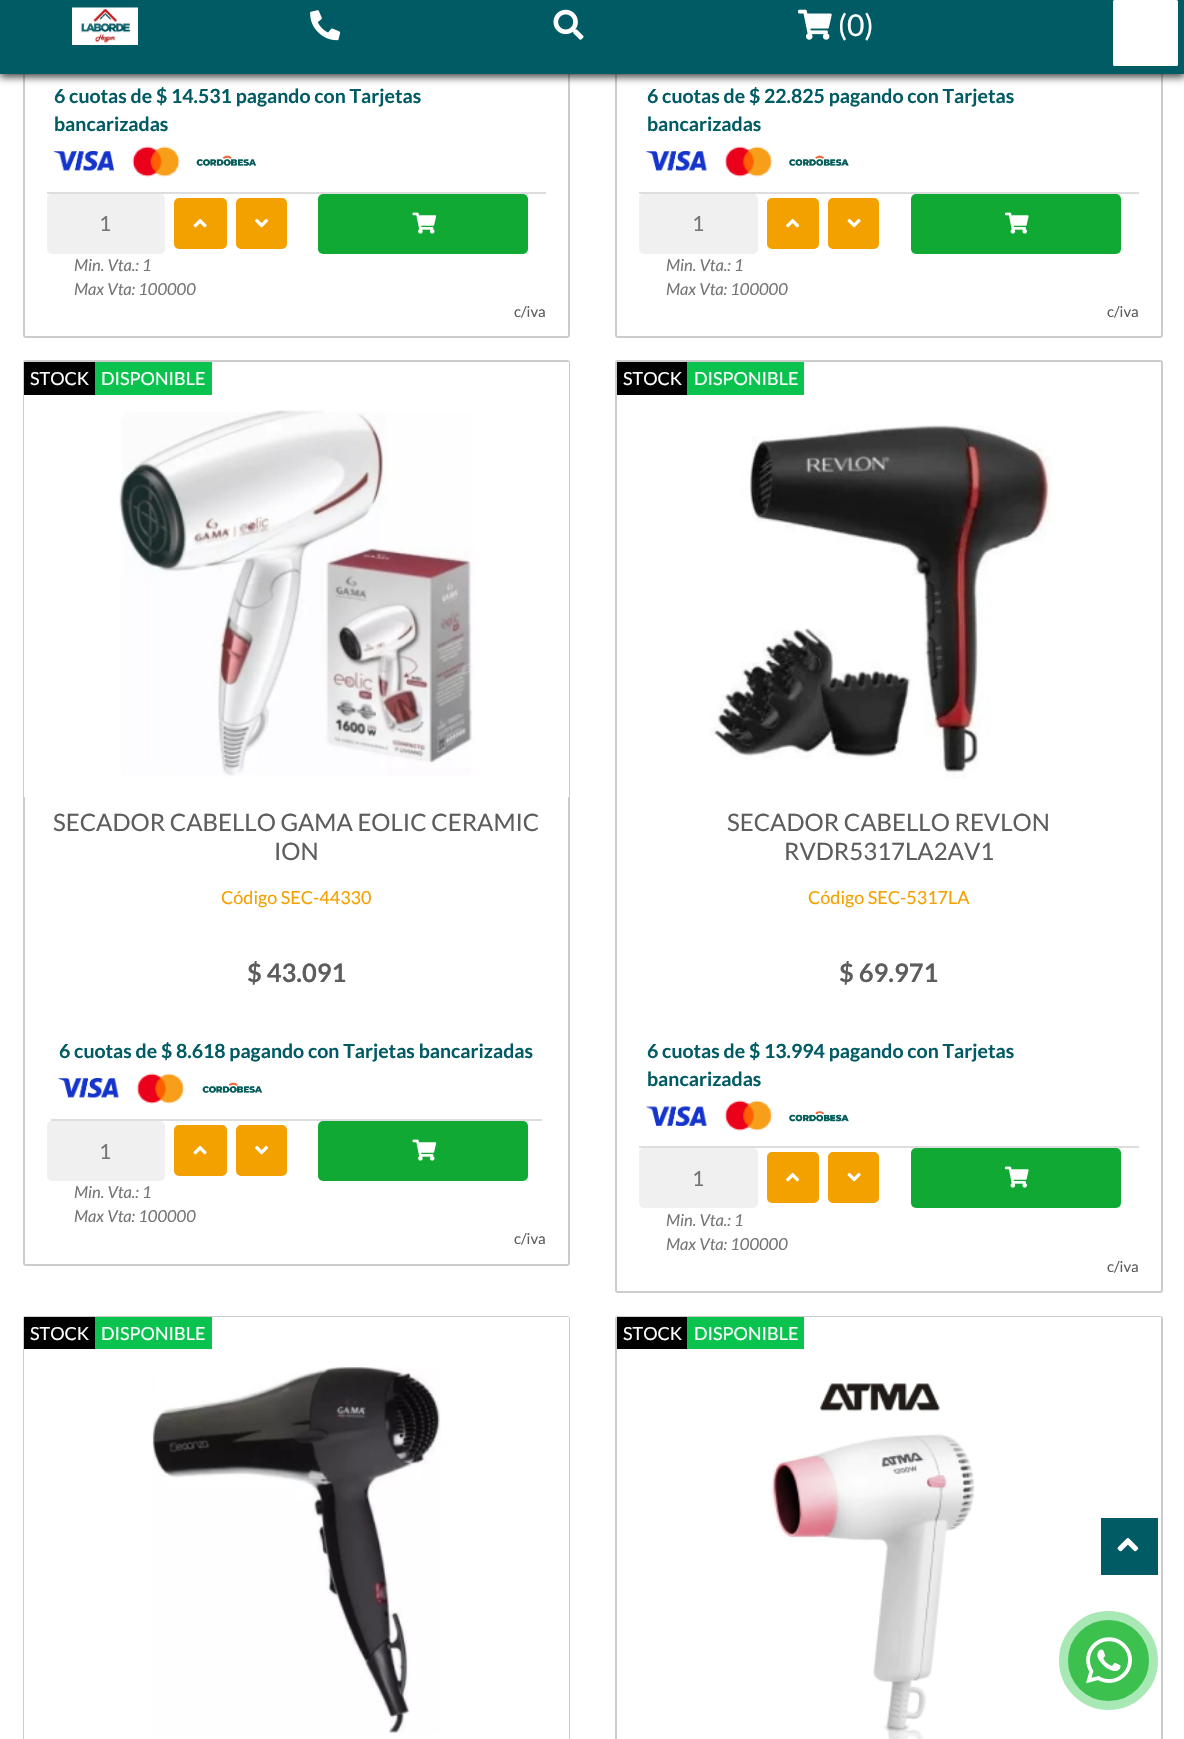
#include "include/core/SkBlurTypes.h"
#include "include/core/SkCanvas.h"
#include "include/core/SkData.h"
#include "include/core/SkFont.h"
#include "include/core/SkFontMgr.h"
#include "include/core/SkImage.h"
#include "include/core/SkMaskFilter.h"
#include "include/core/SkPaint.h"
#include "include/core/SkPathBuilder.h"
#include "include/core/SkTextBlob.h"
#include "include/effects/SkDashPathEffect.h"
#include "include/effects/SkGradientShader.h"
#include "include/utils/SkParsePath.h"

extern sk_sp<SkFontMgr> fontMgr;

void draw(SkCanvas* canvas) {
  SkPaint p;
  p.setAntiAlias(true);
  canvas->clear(SK_ColorWHITE);
  p.setStyle(SkPaint::kStroke_Style);
  p.setStrokeWidth(2);
  p.setColor(SkColorSetRGB(204, 204, 204));
  canvas->drawRoundRect(SkRect::MakeLTRB(24, -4, 569, 337), 2, 2, p);
  canvas->drawRoundRect(SkRect::MakeLTRB(616, -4, 1162, 337), 2, 2, p);
  p.setStyle(SkPaint::kFill_Style);
  p.setColor(SkColorSetARGB(191, 0, 0, 0));
  p.setMaskFilter(SkMaskFilter::MakeBlur(kNormal_SkBlurStyle, 4));
  canvas->drawRect(SkRect::MakeLTRB(0, 3, 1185, 77), p);
  p.setMaskFilter(nullptr);
  p.setColor(SkColorSetRGB(1, 91, 100));
  canvas->drawRect(SkRect::MakeLTRB(0, 0, 1184, 74), p);
  canvas->drawImageRect(SkImages::DeferredFromEncodedData(SkData::MakeFromFileName("images/1.png")), SkRect::MakeLTRB(72, 7, 138, 45), SkSamplingOptions());
  canvas->drawImageRect(SkImages::DeferredFromEncodedData(SkData::MakeFromFileName("images/2.png")), SkRect::MakeLTRB(310, 10, 341, 41), SkSamplingOptions());
  canvas->drawImageRect(SkImages::DeferredFromEncodedData(SkData::MakeFromFileName("images/3.png")), SkRect::MakeLTRB(553, 9, 584, 40), SkSamplingOptions());
  canvas->drawImageRect(SkImages::DeferredFromEncodedData(SkData::MakeFromFileName("images/4.png")), SkRect::MakeLTRB(798, 9, 832, 40), SkSamplingOptions());
  p.setColor(SK_ColorWHITE);
  canvas->drawRoundRect(SkRect::MakeLTRB(1114, 1, 1177, 65), 0.5f, 0.5f, p);
  p.setStyle(SkPaint::kStroke_Style);
  canvas->drawRoundRect(SkRect::MakeLTRB(1114, 1, 1177, 65), 0.5f, 0.5f, p);
  p.setStyle(SkPaint::kFill_Style);
  p.setColor(SkColorSetRGB(221, 221, 221));
  canvas->drawRect(SkRect::MakeLTRB(47, 192, 546, 194), p);
  canvas->drawImageRect(SkImages::DeferredFromEncodedData(SkData::MakeFromFileName("images/5.png")), SkRect::MakeLTRB(54, 151, 114, 171), SkSamplingOptions());
  canvas->drawImageRect(SkImages::DeferredFromEncodedData(SkData::MakeFromFileName("images/6.png")), SkRect::MakeLTRB(132, 146, 180, 177), SkSamplingOptions());
  canvas->drawImageRect(SkImages::DeferredFromEncodedData(SkData::MakeFromFileName("images/7.png")), SkRect::MakeLTRB(196, 155, 257, 166), SkSamplingOptions());
  p.setColor(SkColorSetRGB(240, 240, 240));
  canvas->drawRoundRect(SkRect::MakeLTRB(47, 194, 165, 254), 5, 5, p);
  p.setColor(SkColorSetRGB(243, 161, 0));
  canvas->drawRoundRect(SkRect::MakeLTRB(175, 199, 226, 248), 4, 4, p);
  p.setStyle(SkPaint::kStroke_Style);
  canvas->drawRoundRect(SkRect::MakeLTRB(175, 199, 226, 248), 4, 4, p);
  canvas->drawImageRect(SkImages::DeferredFromEncodedData(SkData::MakeFromFileName("images/8.png")), SkRect::MakeLTRB(193, 218, 207, 228), SkSamplingOptions());
  p.setStyle(SkPaint::kFill_Style);
  canvas->drawRoundRect(SkRect::MakeLTRB(237, 199, 286, 248), 4, 4, p);
  p.setStyle(SkPaint::kStroke_Style);
  canvas->drawRoundRect(SkRect::MakeLTRB(237, 199, 286, 248), 4, 4, p);
  canvas->drawImageRect(SkImages::DeferredFromEncodedData(SkData::MakeFromFileName("images/9.png")), SkRect::MakeLTRB(255, 218, 269, 228), SkSamplingOptions());
  p.setStyle(SkPaint::kFill_Style);
  p.setColor(SkColorSetRGB(16, 169, 52));
  canvas->drawRoundRect(SkRect::MakeLTRB(318, 194, 528, 254), 5, 5, p);
  canvas->drawImageRect(SkImages::DeferredFromEncodedData(SkData::MakeFromFileName("images/10.png")), SkRect::MakeLTRB(412, 212, 437, 234), SkSamplingOptions());
  p.setColor(SkColorSetRGB(221, 221, 221));
  canvas->drawRect(SkRect::MakeLTRB(639, 192, 1139, 194), p);
  canvas->drawImageRect(SkImages::DeferredFromEncodedData(SkData::MakeFromFileName("images/11.png")), SkRect::MakeLTRB(646, 151, 707, 171), SkSamplingOptions());
  canvas->drawImageRect(SkImages::DeferredFromEncodedData(SkData::MakeFromFileName("images/12.png")), SkRect::MakeLTRB(725, 146, 773, 177), SkSamplingOptions());
  canvas->drawImageRect(SkImages::DeferredFromEncodedData(SkData::MakeFromFileName("images/13.png")), SkRect::MakeLTRB(789, 155, 849, 166), SkSamplingOptions());
  p.setColor(SkColorSetRGB(240, 240, 240));
  canvas->drawRoundRect(SkRect::MakeLTRB(639, 194, 758, 254), 5, 5, p);
  p.setColor(SkColorSetRGB(243, 161, 0));
  canvas->drawRoundRect(SkRect::MakeLTRB(768, 199, 818, 248), 4, 4, p);
  p.setStyle(SkPaint::kStroke_Style);
  canvas->drawRoundRect(SkRect::MakeLTRB(768, 199, 818, 248), 4, 4, p);
  canvas->drawImageRect(SkImages::DeferredFromEncodedData(SkData::MakeFromFileName("images/14.png")), SkRect::MakeLTRB(786, 218, 800, 228), SkSamplingOptions());
  p.setStyle(SkPaint::kFill_Style);
  canvas->drawRoundRect(SkRect::MakeLTRB(829, 199, 878, 248), 4, 4, p);
  p.setStyle(SkPaint::kStroke_Style);
  canvas->drawRoundRect(SkRect::MakeLTRB(829, 199, 878, 248), 4, 4, p);
  canvas->drawImageRect(SkImages::DeferredFromEncodedData(SkData::MakeFromFileName("images/15.png")), SkRect::MakeLTRB(847, 218, 861, 228), SkSamplingOptions());
  p.setStyle(SkPaint::kFill_Style);
  p.setColor(SkColorSetRGB(16, 169, 52));
  canvas->drawRoundRect(SkRect::MakeLTRB(911, 194, 1121, 254), 5, 5, p);
  canvas->drawImageRect(SkImages::DeferredFromEncodedData(SkData::MakeFromFileName("images/16.png")), SkRect::MakeLTRB(1005, 212, 1029, 234), SkSamplingOptions());
  p.setStyle(SkPaint::kStroke_Style);
  p.setColor(SkColorSetRGB(204, 204, 204));
  canvas->drawRoundRect(SkRect::MakeLTRB(24, 361, 569, 1265), 2, 2, p);
  p.setStyle(SkPaint::kFill_Style);
  p.setColor(SK_ColorWHITE);
  canvas->drawRect(SkRect::MakeLTRB(24, 362, 569, 797), p);
  canvas->drawImageRect(SkImages::DeferredFromEncodedData(SkData::MakeFromFileName("images/17.png")), SkRect::MakeLTRB(119, 410, 476, 777), SkSamplingOptions());
  p.setColor(SK_ColorBLACK);
  canvas->drawRect(SkRect::MakeLTRB(24, 362, 95, 395), p);
  p.setColor(SkColorSetRGB(10, 195, 78));
  canvas->drawRect(SkRect::MakeLTRB(95, 362, 212, 395), p);
  p.setColor(SkColorSetRGB(221, 221, 221));
  canvas->drawRect(SkRect::MakeLTRB(51, 1119, 542, 1121), p);
  canvas->drawImageRect(SkImages::DeferredFromEncodedData(SkData::MakeFromFileName("images/11.png")), SkRect::MakeLTRB(58, 1078, 119, 1098), SkSamplingOptions());
  canvas->drawImageRect(SkImages::DeferredFromEncodedData(SkData::MakeFromFileName("images/18.png")), SkRect::MakeLTRB(137, 1073, 185, 1104), SkSamplingOptions());
  canvas->drawImageRect(SkImages::DeferredFromEncodedData(SkData::MakeFromFileName("images/19.png")), SkRect::MakeLTRB(202, 1082, 263, 1093), SkSamplingOptions());
  p.setColor(SkColorSetRGB(240, 240, 240));
  canvas->drawRoundRect(SkRect::MakeLTRB(47, 1121, 165, 1181), 5, 5, p);
  p.setColor(SkColorSetRGB(243, 161, 0));
  canvas->drawRoundRect(SkRect::MakeLTRB(175, 1126, 226, 1175), 4, 4, p);
  p.setStyle(SkPaint::kStroke_Style);
  canvas->drawRoundRect(SkRect::MakeLTRB(175, 1126, 226, 1175), 4, 4, p);
  canvas->drawImageRect(SkImages::DeferredFromEncodedData(SkData::MakeFromFileName("images/8.png")), SkRect::MakeLTRB(193, 1145, 207, 1155), SkSamplingOptions());
  p.setStyle(SkPaint::kFill_Style);
  canvas->drawRoundRect(SkRect::MakeLTRB(237, 1126, 286, 1175), 4, 4, p);
  p.setStyle(SkPaint::kStroke_Style);
  canvas->drawRoundRect(SkRect::MakeLTRB(237, 1126, 286, 1175), 4, 4, p);
  canvas->drawImageRect(SkImages::DeferredFromEncodedData(SkData::MakeFromFileName("images/9.png")), SkRect::MakeLTRB(255, 1145, 269, 1155), SkSamplingOptions());
  p.setStyle(SkPaint::kFill_Style);
  p.setColor(SkColorSetRGB(16, 169, 52));
  canvas->drawRoundRect(SkRect::MakeLTRB(318, 1121, 528, 1181), 5, 5, p);
  canvas->drawImageRect(SkImages::DeferredFromEncodedData(SkData::MakeFromFileName("images/10.png")), SkRect::MakeLTRB(412, 1139, 437, 1161), SkSamplingOptions());
  p.setStyle(SkPaint::kStroke_Style);
  p.setColor(SkColorSetRGB(204, 204, 204));
  canvas->drawRoundRect(SkRect::MakeLTRB(616, 361, 1162, 1292), 2, 2, p);
  p.setStyle(SkPaint::kFill_Style);
  p.setColor(SK_ColorWHITE);
  canvas->drawRect(SkRect::MakeLTRB(617, 362, 1161, 363), p);
  canvas->drawImageRect(SkImages::DeferredFromEncodedData(SkData::MakeFromFileName("images/20.png")), SkRect::MakeLTRB(709, 425, 1053, 779), SkSamplingOptions());
  p.setColor(SK_ColorBLACK);
  canvas->drawRect(SkRect::MakeLTRB(617, 362, 687, 395), p);
  p.setColor(SkColorSetRGB(10, 195, 78));
  canvas->drawRect(SkRect::MakeLTRB(687, 362, 804, 395), p);
  p.setColor(SkColorSetRGB(221, 221, 221));
  canvas->drawRect(SkRect::MakeLTRB(639, 1146, 1139, 1148), p);
  canvas->drawImageRect(SkImages::DeferredFromEncodedData(SkData::MakeFromFileName("images/21.png")), SkRect::MakeLTRB(646, 1106, 707, 1126), SkSamplingOptions());
  canvas->drawImageRect(SkImages::DeferredFromEncodedData(SkData::MakeFromFileName("images/12.png")), SkRect::MakeLTRB(725, 1100, 773, 1131), SkSamplingOptions());
  canvas->drawImageRect(SkImages::DeferredFromEncodedData(SkData::MakeFromFileName("images/22.png")), SkRect::MakeLTRB(789, 1111, 849, 1122), SkSamplingOptions());
  p.setColor(SkColorSetRGB(240, 240, 240));
  canvas->drawRoundRect(SkRect::MakeLTRB(639, 1148, 758, 1208), 5, 5, p);
  p.setColor(SkColorSetRGB(243, 161, 0));
  canvas->drawRoundRect(SkRect::MakeLTRB(768, 1153, 818, 1202), 4, 4, p);
  p.setStyle(SkPaint::kStroke_Style);
  canvas->drawRoundRect(SkRect::MakeLTRB(768, 1153, 818, 1202), 4, 4, p);
  canvas->drawImageRect(SkImages::DeferredFromEncodedData(SkData::MakeFromFileName("images/14.png")), SkRect::MakeLTRB(786, 1172, 800, 1182), SkSamplingOptions());
  p.setStyle(SkPaint::kFill_Style);
  canvas->drawRoundRect(SkRect::MakeLTRB(829, 1153, 878, 1202), 4, 4, p);
  p.setStyle(SkPaint::kStroke_Style);
  canvas->drawRoundRect(SkRect::MakeLTRB(829, 1153, 878, 1202), 4, 4, p);
  canvas->drawImageRect(SkImages::DeferredFromEncodedData(SkData::MakeFromFileName("images/15.png")), SkRect::MakeLTRB(847, 1172, 861, 1182), SkSamplingOptions());
  p.setStyle(SkPaint::kFill_Style);
  p.setColor(SkColorSetRGB(16, 169, 52));
  canvas->drawRoundRect(SkRect::MakeLTRB(911, 1148, 1121, 1208), 5, 5, p);
  canvas->drawImageRect(SkImages::DeferredFromEncodedData(SkData::MakeFromFileName("images/16.png")), SkRect::MakeLTRB(1005, 1166, 1029, 1188), SkSamplingOptions());
  p.setStyle(SkPaint::kStroke_Style);
  p.setColor(SkColorSetRGB(204, 204, 204));
  canvas->drawRoundRect(SkRect::MakeLTRB(24, 1317, 569, 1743), 2, 2, p);
  p.setStyle(SkPaint::kFill_Style);
  p.setColor(SK_ColorWHITE);
  canvas->drawRect(SkRect::MakeLTRB(24, 1317, 569, 1739), p);
  canvas->drawImageRect(SkImages::DeferredFromEncodedData(SkData::MakeFromFileName("images/23.png")), SkRect::MakeLTRB(151, 1366, 441, 1734), SkSamplingOptions());
  p.setColor(SK_ColorBLACK);
  canvas->drawRect(SkRect::MakeLTRB(24, 1317, 95, 1349), p);
  p.setColor(SkColorSetRGB(10, 195, 78));
  canvas->drawRect(SkRect::MakeLTRB(95, 1317, 212, 1349), p);
  p.setStyle(SkPaint::kStroke_Style);
  p.setColor(SkColorSetRGB(204, 204, 204));
  canvas->drawRoundRect(SkRect::MakeLTRB(616, 1317, 1162, 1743), 2, 2, p);
  p.setStyle(SkPaint::kFill_Style);
  p.setColor(SK_ColorWHITE);
  canvas->drawRect(SkRect::MakeLTRB(617, 1317, 1161, 1319), p);
  canvas->drawImageRect(SkImages::DeferredFromEncodedData(SkData::MakeFromFileName("images/24.png")), SkRect::MakeLTRB(770, 1383, 975, 1739), SkSamplingOptions());
  p.setColor(SK_ColorBLACK);
  canvas->drawRect(SkRect::MakeLTRB(617, 1317, 687, 1349), p);
  p.setColor(SkColorSetRGB(10, 195, 78));
  canvas->drawRect(SkRect::MakeLTRB(687, 1317, 804, 1349), p);
  p.setColor(SkColorSetRGB(1, 91, 100));
  canvas->drawRect(SkRect::MakeLTRB(1101, 1518, 1158, 1575), p);
  canvas->drawImageRect(SkImages::DeferredFromEncodedData(SkData::MakeFromFileName("images/25.png")), SkRect::MakeLTRB(1117, 1538, 1139, 1552), SkSamplingOptions());
  p.setColor(SkColorSetRGB(60, 193, 78));
  canvas->drawCircle(1108.5f, 1660.5f, 45, p);
  p.setStyle(SkPaint::kStroke_Style);
  p.setStrokeWidth(9);
  p.setColor(SkColorSetRGB(167, 232, 181));
  canvas->drawCircle(1108.5f, 1660.5f, 45, p);
  canvas->drawImageRect(SkImages::DeferredFromEncodedData(SkData::MakeFromFileName("images/26.png")), SkRect::MakeLTRB(1086, 1637, 1132, 1684), SkSamplingOptions());
  SkFont font1(fontMgr->matchFamilyStyle("Lato", SkFontStyle::Normal()), 30);
  font1.setSubpixel(true);
  p.setStyle(SkPaint::kFill_Style);
  p.setColor(SK_ColorWHITE);
  canvas->drawString("(0)", 838, 36, font1, p);
  SkFont font2(fontMgr->matchFamilyStyle("Lato", SkFontStyle::Bold()), 19.5f);
  font2.setSubpixel(true);
  p.setColor(SkColorSetRGB(1, 91, 100));
  canvas->drawString("6 cuotas de $ 14.531 pagando con Tarjetas", 54, 103, font2, p);
  canvas->drawString("bancarizadas", 54, 131, font2, p);
  SkFont font3(fontMgr->matchFamilyStyle("Lato", SkFontStyle::Normal()), 21);
  font3.setSubpixel(true);
  p.setColor(SkColorSetRGB(118, 117, 117));
  canvas->drawString("1", 99, 231, font3, p);
  SkFont font4(fontMgr->matchFamilyStyle("Lato", SkFontStyle::Italic()), 16.5f);
  font4.setSubpixel(true);
  canvas->drawString("Min. Vta.: 1", 74, 271, font4, p);
  canvas->drawString("Max Vta: 100000", 74, 295, font4, p);
  SkFont font5(fontMgr->matchFamilyStyle("Lato", SkFontStyle::Normal()), 15);
  font5.setSubpixel(true);
  p.setColor(SkColorSetRGB(93, 93, 93));
  canvas->drawString("c/iva", 514, 317, font5, p);
  p.setColor(SkColorSetRGB(1, 91, 100));
  canvas->drawString("6 cuotas de $ 22.825 pagando con Tarjetas", 647, 103, font2, p);
  canvas->drawString("bancarizadas", 647, 131, font2, p);
  p.setColor(SkColorSetRGB(118, 117, 117));
  canvas->drawString("1", 692, 231, font3, p);
  canvas->drawString("Min. Vta.: 1", 666, 271, font4, p);
  canvas->drawString("Max Vta: 100000", 666, 295, font4, p);
  p.setColor(SkColorSetRGB(93, 93, 93));
  canvas->drawString("c/iva", 1107, 317, font5, p);
  SkFont font6(fontMgr->matchFamilyStyle("Lato", SkFontStyle::Normal()), 18);
  font6.setSubpixel(true);
  p.setColor(SK_ColorWHITE);
  canvas->drawString("STOCK", 30, 385, font6, p);
  canvas->drawString("DISPONIBLE", 101, 385, font6, p);
  SkFont font7(fontMgr->matchFamilyStyle("Lato", SkFontStyle::Normal()), 24);
  font7.setSubpixel(true);
  p.setColor(SkColorSetRGB(93, 93, 93));
  canvas->drawString("SECADOR CABELLO GAMA EOLIC CERAMIC", 53, 831, font7, p);
  canvas->drawString("ION", 274, 860, font7, p);
  p.setColor(SkColorSetRGB(243, 161, 0));
  canvas->drawString("Código SEC-44330", 221, 904, font6, p);
  SkFont font8(fontMgr->matchFamilyStyle("Lato", SkFontStyle::Bold()), 25.5f);
  font8.setSubpixel(true);
  p.setColor(SkColorSetRGB(93, 93, 93));
  canvas->drawString("$ 43.091", 247, 982, font8, p);
  p.setColor(SkColorSetRGB(1, 91, 100));
  canvas->drawString("6 cuotas de $ 8.618 pagando con Tarjetas bancarizadas", 59, 1058, font2, p);
  p.setColor(SkColorSetRGB(118, 117, 117));
  canvas->drawString("1", 99, 1159, font3, p);
  canvas->drawString("Min. Vta.: 1", 74, 1198, font4, p);
  canvas->drawString("Max Vta: 100000", 74, 1222, font4, p);
  p.setColor(SkColorSetRGB(93, 93, 93));
  canvas->drawString("c/iva", 514, 1244, font5, p);
  p.setColor(SK_ColorWHITE);
  canvas->drawString("STOCK", 623, 385, font6, p);
  canvas->drawString("DISPONIBLE", 694, 385, font6, p);
  p.setColor(SkColorSetRGB(93, 93, 93));
  canvas->drawString("SECADOR CABELLO REVLON", 727, 831, font7, p);
  canvas->drawString("RVDR5317LA2AV1", 784, 860, font7, p);
  p.setColor(SkColorSetRGB(243, 161, 0));
  canvas->drawString("Código SEC-5317LA", 808, 904, font6, p);
  p.setColor(SkColorSetRGB(93, 93, 93));
  canvas->drawString("$ 69.971", 839, 982, font8, p);
  p.setColor(SkColorSetRGB(1, 91, 100));
  canvas->drawString("6 cuotas de $ 13.994 pagando con Tarjetas", 647, 1058, font2, p);
  canvas->drawString("bancarizadas", 647, 1086, font2, p);
  p.setColor(SkColorSetRGB(118, 117, 117));
  canvas->drawString("1", 692, 1186, font3, p);
  canvas->drawString("Min. Vta.: 1", 666, 1226, font4, p);
  canvas->drawString("Max Vta: 100000", 666, 1250, font4, p);
  p.setColor(SkColorSetRGB(93, 93, 93));
  canvas->drawString("c/iva", 1107, 1272, font5, p);
  p.setColor(SK_ColorWHITE);
  canvas->drawString("STOCK", 30, 1340, font6, p);
  canvas->drawString("DISPONIBLE", 101, 1340, font6, p);
  canvas->drawString("STOCK", 623, 1340, font6, p);
  canvas->drawString("DISPONIBLE", 694, 1340, font6, p);
}
